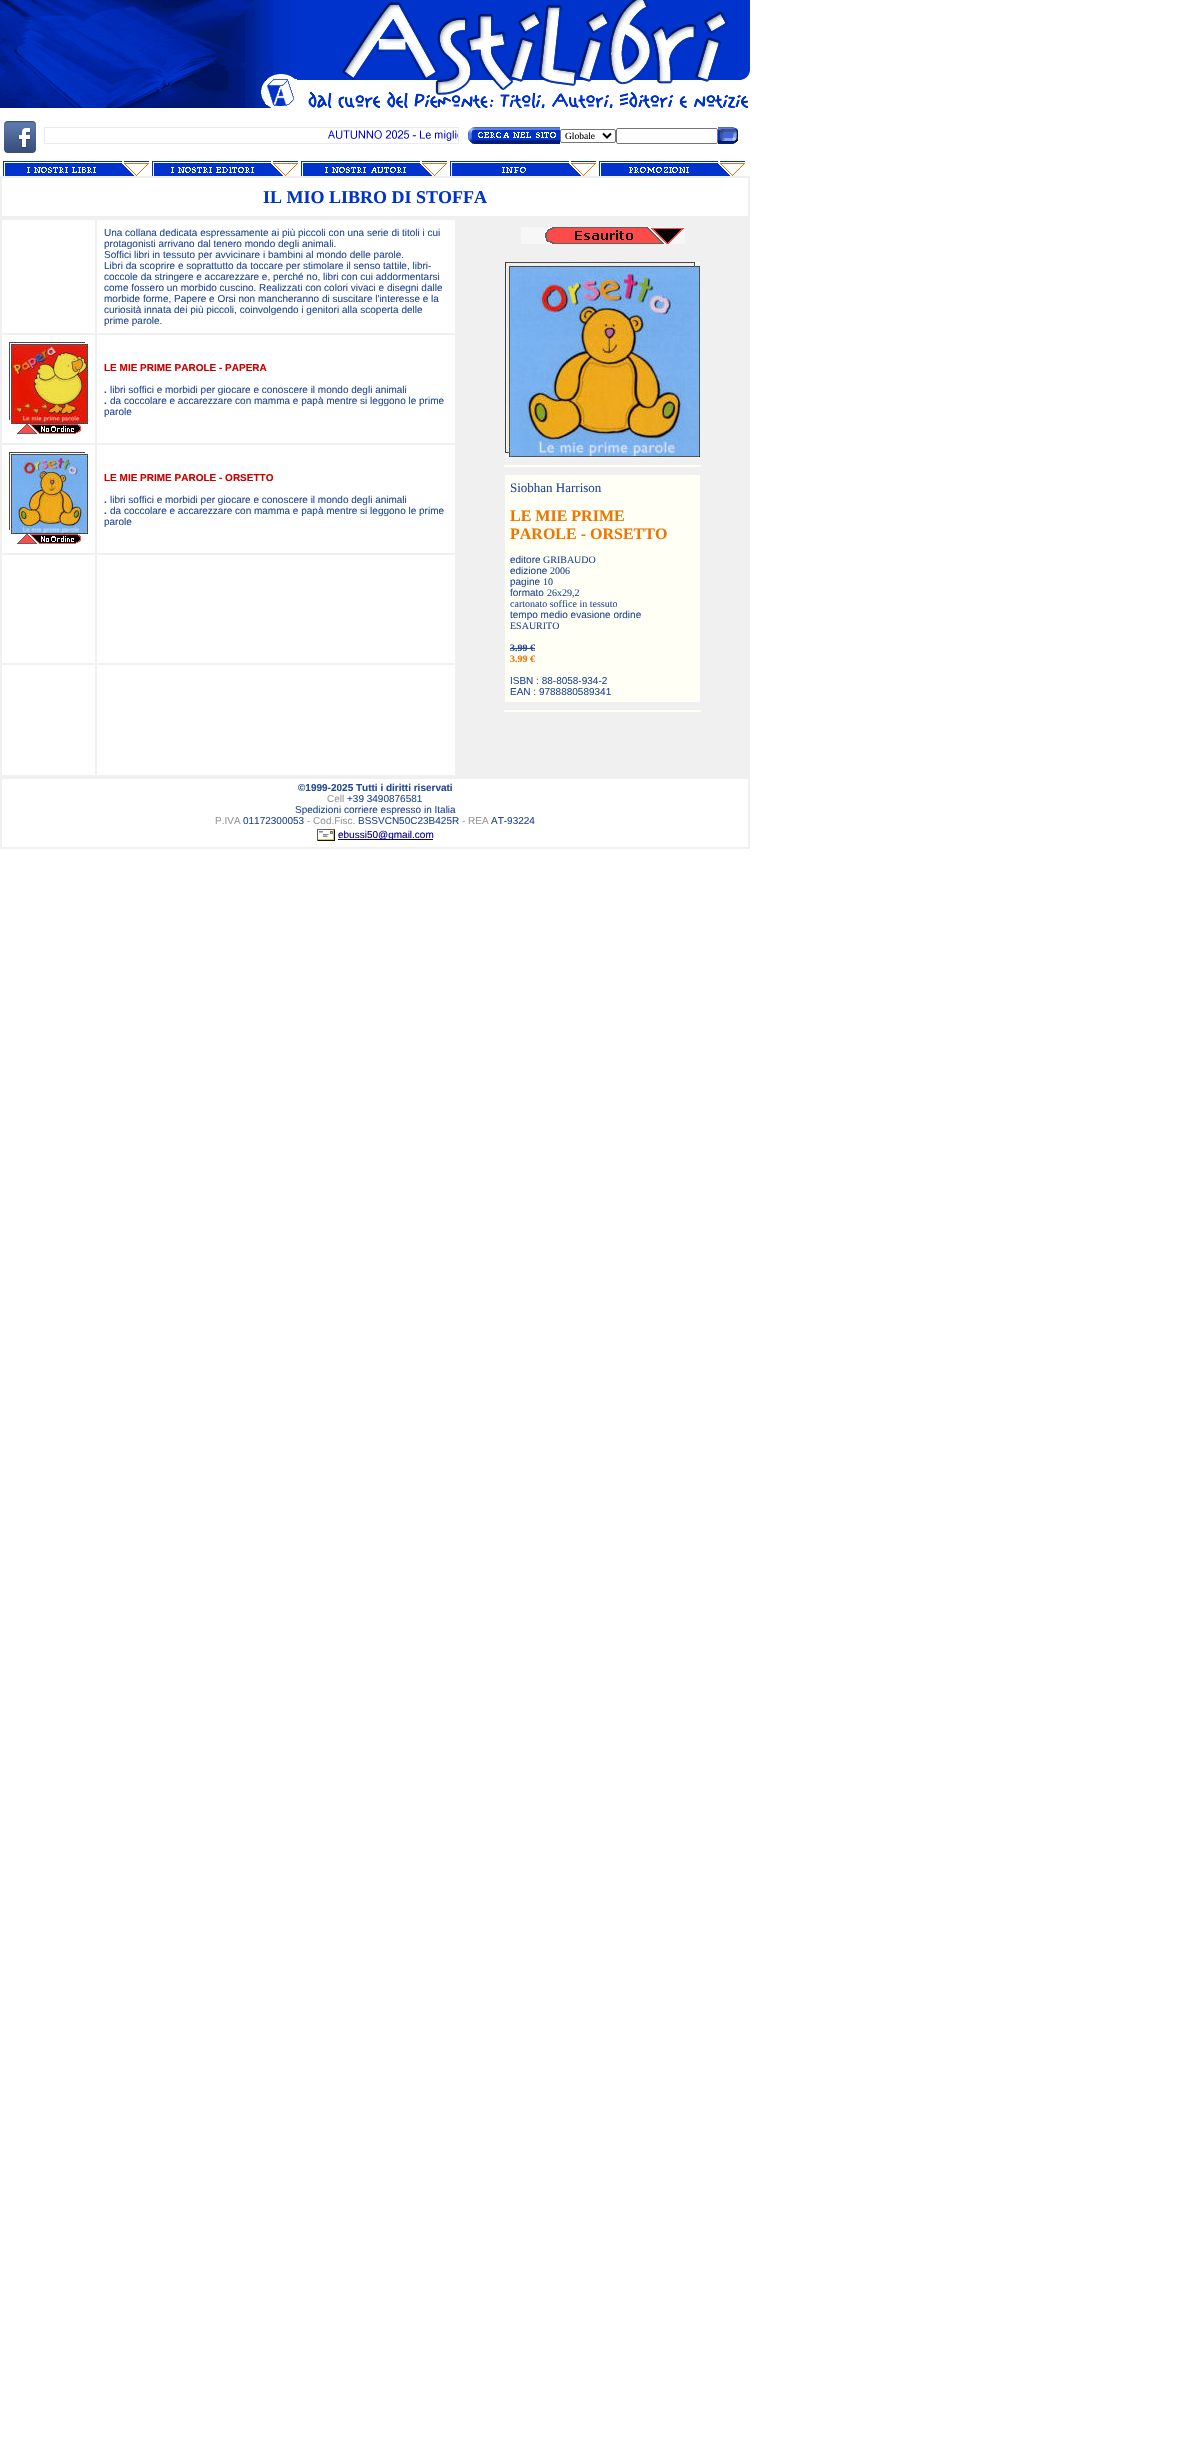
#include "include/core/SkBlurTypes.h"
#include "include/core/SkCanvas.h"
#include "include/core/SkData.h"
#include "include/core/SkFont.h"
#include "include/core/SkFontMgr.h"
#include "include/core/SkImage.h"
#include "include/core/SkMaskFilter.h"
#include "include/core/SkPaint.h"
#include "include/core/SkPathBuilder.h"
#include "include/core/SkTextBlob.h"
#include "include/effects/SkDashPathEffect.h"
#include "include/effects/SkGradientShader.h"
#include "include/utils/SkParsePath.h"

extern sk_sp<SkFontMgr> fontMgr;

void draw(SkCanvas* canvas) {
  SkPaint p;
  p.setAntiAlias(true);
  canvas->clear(SK_ColorWHITE);
  p.setColor(SkColorSetRGB(232, 236, 240));
  canvas->drawRect(SkRect::MakeLTRB(44, 127, 459, 144), p);
  canvas->drawImageRect(SkImages::DeferredFromEncodedData(SkData::MakeFromFileName("images/1.png")), SkRect::MakeLTRB(45, 128, 458, 143), SkSamplingOptions());
  canvas->drawImageRect(SkImages::DeferredFromEncodedData(SkData::MakeFromFileName("images/2.png")), SkRect::MakeLTRB(0, 0, 162, 108), SkSamplingOptions());
  canvas->drawImageRect(SkImages::DeferredFromEncodedData(SkData::MakeFromFileName("images/3.png")), SkRect::MakeLTRB(162, 0, 437, 108), SkSamplingOptions());
  canvas->drawImageRect(SkImages::DeferredFromEncodedData(SkData::MakeFromFileName("images/4.png")), SkRect::MakeLTRB(437, 0, 750, 108), SkSamplingOptions());
  canvas->drawImageRect(SkImages::DeferredFromEncodedData(SkData::MakeFromFileName("images/5.png")), SkRect::MakeLTRB(4, 121, 36, 153), SkSamplingOptions());
  canvas->drawImageRect(SkImages::DeferredFromEncodedData(SkData::MakeFromFileName("images/6.png")), SkRect::MakeLTRB(468, 127, 560, 144), SkSamplingOptions());
  p.setStyle(SkPaint::kStroke_Style);
  p.setStrokeWidth(1);
  p.setColor(SkColorSetRGB(118, 118, 118));
  canvas->drawRoundRect(SkRect::MakeLTRB(560.5f, 129.5f, 615.5f, 142.5f), 1.5f, 1.5f, p);
  p.setStrokeWidth(2);
  p.setColor(SK_ColorBLACK);
  canvas->drawPath(SkPathBuilder().moveTo(603, 133.5f).lineTo(607, 137.5f).lineTo(611, 133.5f).detach(), p);
  p.setStrokeWidth(1);
  p.setColor(SkColorSetRGB(118, 118, 118));
  canvas->drawRoundRect(SkRect::MakeLTRB(616.5f, 128.5f, 717.5f, 143.5f), 1.5f, 1.5f, p);
  canvas->drawImageRect(SkImages::DeferredFromEncodedData(SkData::MakeFromFileName("images/7.png")), SkRect::MakeLTRB(718, 127, 738, 144), SkSamplingOptions());
  canvas->drawImageRect(SkImages::DeferredFromEncodedData(SkData::MakeFromFileName("images/8.png")), SkRect::MakeLTRB(3, 161, 149, 176), SkSamplingOptions());
  canvas->drawImageRect(SkImages::DeferredFromEncodedData(SkData::MakeFromFileName("images/9.png")), SkRect::MakeLTRB(152, 161, 298, 176), SkSamplingOptions());
  canvas->drawImageRect(SkImages::DeferredFromEncodedData(SkData::MakeFromFileName("images/10.png")), SkRect::MakeLTRB(301, 161, 447, 176), SkSamplingOptions());
  canvas->drawImageRect(SkImages::DeferredFromEncodedData(SkData::MakeFromFileName("images/11.png")), SkRect::MakeLTRB(450, 161, 596, 176), SkSamplingOptions());
  canvas->drawImageRect(SkImages::DeferredFromEncodedData(SkData::MakeFromFileName("images/12.png")), SkRect::MakeLTRB(599, 161, 745, 176), SkSamplingOptions());
  p.setColor(SkColorSetRGB(240, 240, 240));
  canvas->drawRect(SkRect::MakeLTRB(0.5f, 176.5f, 749.5f, 217.5f), p);
  canvas->drawRect(SkRect::MakeLTRB(1.5f, 177.5f, 748.5f, 216.5f), p);
  canvas->drawRect(SkRect::MakeLTRB(0.5f, 218.5f, 749.5f, 776.5f), p);
  canvas->drawRect(SkRect::MakeLTRB(1.5f, 219.5f, 95.5f, 333.5f), p);
  canvas->drawRect(SkRect::MakeLTRB(96.5f, 219.5f, 455.5f, 333.5f), p);
  p.setStyle(SkPaint::kFill_Style);
  canvas->drawRect(SkRect::MakeLTRB(456, 219, 749, 776), p);
  canvas->drawImageRect(SkImages::DeferredFromEncodedData(SkData::MakeFromFileName("images/13.png")), SkRect::MakeLTRB(521, 227, 685, 244), SkSamplingOptions());
  canvas->drawImageRect(SkImages::DeferredFromEncodedData(SkData::MakeFromFileName("images/14.png")), SkRect::MakeLTRB(505, 262, 700, 457), SkSamplingOptions());
  p.setColor(SkColorSetRGB(255, 255, 245));
  canvas->drawRect(SkRect::MakeLTRB(504, 465, 701, 467), p);
  canvas->drawRect(SkRect::MakeLTRB(505, 475, 700, 702), p);
  p.setColor(SkColorSetRGB(36, 73, 153));
  canvas->drawRect(SkRect::MakeLTRB(510, 648, 535, 649), p);
  p.setColor(SkColorSetRGB(255, 255, 245));
  canvas->drawRect(SkRect::MakeLTRB(504, 710, 701, 712), p);
  p.setStyle(SkPaint::kStroke_Style);
  p.setColor(SkColorSetRGB(240, 240, 240));
  canvas->drawRect(SkRect::MakeLTRB(1.5f, 334.5f, 95.5f, 443.5f), p);
  canvas->drawImageRect(SkImages::DeferredFromEncodedData(SkData::MakeFromFileName("images/15.png")), SkRect::MakeLTRB(9, 342, 88, 424), SkSamplingOptions());
  canvas->drawImageRect(SkImages::DeferredFromEncodedData(SkData::MakeFromFileName("images/16.png")), SkRect::MakeLTRB(17, 424, 81, 434), SkSamplingOptions());
  canvas->drawRect(SkRect::MakeLTRB(96.5f, 334.5f, 455.5f, 443.5f), p);
  canvas->drawRect(SkRect::MakeLTRB(1.5f, 444.5f, 95.5f, 553.5f), p);
  canvas->drawImageRect(SkImages::DeferredFromEncodedData(SkData::MakeFromFileName("images/17.png")), SkRect::MakeLTRB(9, 452, 88, 534), SkSamplingOptions());
  canvas->drawImageRect(SkImages::DeferredFromEncodedData(SkData::MakeFromFileName("images/16.png")), SkRect::MakeLTRB(17, 534, 81, 544), SkSamplingOptions());
  canvas->drawRect(SkRect::MakeLTRB(96.5f, 444.5f, 455.5f, 553.5f), p);
  canvas->drawRect(SkRect::MakeLTRB(1.5f, 554.5f, 95.5f, 663.5f), p);
  canvas->drawRect(SkRect::MakeLTRB(96.5f, 554.5f, 455.5f, 663.5f), p);
  canvas->drawRect(SkRect::MakeLTRB(1.5f, 664.5f, 95.5f, 775.5f), p);
  canvas->drawRect(SkRect::MakeLTRB(96.5f, 664.5f, 455.5f, 775.5f), p);
  canvas->drawRect(SkRect::MakeLTRB(0.5f, 777.5f, 749.5f, 848.5f), p);
  canvas->drawRect(SkRect::MakeLTRB(1.5f, 778.5f, 748.5f, 847.5f), p);
  canvas->drawImageRect(SkImages::DeferredFromEncodedData(SkData::MakeFromFileName("images/18.png")), SkRect::MakeLTRB(317, 829, 335, 841), SkSamplingOptions());
  p.setStyle(SkPaint::kFill_Style);
  p.setColor(SkColorSetRGB(0, 0, 153));
  canvas->drawRect(SkRect::MakeLTRB(338, 839, 433, 840), p);
  SkFont font1(fontMgr->matchFamilyStyle("Liberation Serif", SkFontStyle::Normal()), 9.5f);
  font1.setSubpixel(true);
  p.setColor(SK_ColorBLACK);
  canvas->drawString("Globale", 565, 139, font1, p);
  SkFont font2(fontMgr->matchFamilyStyle("Liberation Serif", SkFontStyle::Bold()), 18);
  font2.setSubpixel(true);
  p.setColor(SkColorSetRGB(0, 51, 204));
  canvas->drawString("IL MIO LIBRO DI STOFFA", 263, 203, font2, p);
  SkFont font3(fontMgr->matchFamilyStyle("Liberation Sans", SkFontStyle::Normal()), 10);
  font3.setSubpixel(true);
  p.setColor(SkColorSetRGB(36, 73, 153));
  canvas->drawString("Una collana dedicata espressamente ai più piccoli con una serie di titoli i cui", 104, 236, font3, p);
  canvas->drawString("protagonisti arrivano dal tenero mondo degli animali.", 104, 247, font3, p);
  canvas->drawString("Soffici libri in tessuto per avvicinare i bambini al mondo delle parole.", 104, 258, font3, p);
  canvas->drawString("Libri da scoprire e soprattutto da toccare per stimolare il senso tattile, libri-", 104, 269, font3, p);
  canvas->drawString("coccole da stringere e accarezzare e, perché no, libri con cui addormentarsi", 104, 280, font3, p);
  canvas->drawString("come fossero un morbido cuscino. Realizzati con colori vivaci e disegni dalle", 104, 291, font3, p);
  canvas->drawString("morbide forme, Papere e Orsi non mancheranno di suscitare l'interesse e la", 104, 302, font3, p);
  canvas->drawString("curiosità innata dei più piccoli, coinvolgendo i genitori alla scoperta delle", 104, 313, font3, p);
  canvas->drawString("prime parole.", 104, 324, font3, p);
  SkFont font4(fontMgr->matchFamilyStyle("Liberation Serif", SkFontStyle::Normal()), 13);
  font4.setSubpixel(true);
  canvas->drawString("Siobhan Harrison", 510, 492, font4, p);
  SkFont font5(fontMgr->matchFamilyStyle("Liberation Serif", SkFontStyle::Bold()), 16);
  font5.setSubpixel(true);
  p.setColor(SkColorSetRGB(236, 118, 0));
  canvas->drawString("LE MIE PRIME", 510, 521, font5, p);
  canvas->drawString("PAROLE - ORSETTO", 510, 539, font5, p);
  p.setColor(SkColorSetRGB(36, 73, 153));
  canvas->drawString("editore", 510, 563, font3, p);
  SkFont font6(fontMgr->matchFamilyStyle("Liberation Serif", SkFontStyle::Normal()), 10);
  font6.setSubpixel(true);
  p.setColor(SkColorSetRGB(36, 73, 144));
  canvas->drawString("GRIBAUDO", 543, 563, font6, p);
  p.setColor(SkColorSetRGB(36, 73, 153));
  canvas->drawString("edizione", 510, 574, font3, p);
  p.setColor(SkColorSetRGB(36, 73, 144));
  canvas->drawString("2006", 550, 574, font6, p);
  p.setColor(SkColorSetRGB(36, 73, 153));
  canvas->drawString("pagine", 510, 585, font3, p);
  p.setColor(SkColorSetRGB(36, 73, 144));
  canvas->drawString("10", 543, 585, font6, p);
  p.setColor(SkColorSetRGB(36, 73, 153));
  canvas->drawString("formato", 510, 596, font3, p);
  p.setColor(SkColorSetRGB(36, 73, 144));
  canvas->drawString("26x29,2", 547, 596, font6, p);
  p.setColor(SkColorSetRGB(36, 73, 153));
  canvas->drawString("cartonato soffice in tessuto", 510, 607, font6, p);
  canvas->drawString("tempo medio evasione ordine", 510, 618, font3, p);
  p.setColor(SkColorSetRGB(36, 73, 144));
  canvas->drawString("ESAURITO", 510, 629, font6, p);
  SkFont font7(fontMgr->matchFamilyStyle("Liberation Serif", SkFontStyle::Bold()), 10);
  font7.setSubpixel(true);
  p.setColor(SkColorSetRGB(36, 73, 153));
  canvas->drawString("3.99 €", 510, 651, font7, p);
  p.setColor(SkColorSetRGB(236, 118, 0));
  canvas->drawString("3.99 €", 510, 662, font7, p);
  p.setColor(SkColorSetRGB(36, 73, 153));
  canvas->drawString("ISBN : 88-8058-934-2", 510, 684, font3, p);
  canvas->drawString("EAN : 9788880589341", 510, 695, font3, p);
  SkFont font8(fontMgr->matchFamilyStyle("Liberation Sans", SkFontStyle::Bold()), 10);
  font8.setSubpixel(true);
  p.setColor(SkColorSetRGB(204, 0, 0));
  canvas->drawString("LE MIE PRIME PAROLE - PAPERA", 104, 371, font8, p);
  p.setColor(SkColorSetRGB(36, 73, 153));
  canvas->drawString(".", 104, 393, font8, p);
  canvas->drawString("libri soffici e morbidi per giocare e conoscere il mondo degli animali", 110, 393, font3, p);
  canvas->drawString(".", 104, 404, font8, p);
  canvas->drawString("da coccolare e accarezzare con mamma e papà mentre si leggono le prime", 110, 404, font3, p);
  canvas->drawString("parole", 104, 415, font3, p);
  p.setColor(SkColorSetRGB(204, 0, 0));
  canvas->drawString("LE MIE PRIME PAROLE - ORSETTO", 104, 481, font8, p);
  p.setColor(SkColorSetRGB(36, 73, 153));
  canvas->drawString(".", 104, 503, font8, p);
  canvas->drawString("libri soffici e morbidi per giocare e conoscere il mondo degli animali", 110, 503, font3, p);
  canvas->drawString(".", 104, 514, font8, p);
  canvas->drawString("da coccolare e accarezzare con mamma e papà mentre si leggono le prime", 110, 514, font3, p);
  canvas->drawString("parole", 104, 525, font3, p);
  canvas->drawString("©1999-2025 Tutti i diritti riservati", 298, 791, font8, p);
  p.setColor(SkColorSetRGB(153, 153, 153));
  canvas->drawString("Cell", 327, 802, font3, p);
  p.setColor(SkColorSetRGB(36, 73, 153));
  canvas->drawString("+39 3490876581", 347, 802, font3, p);
  canvas->drawString("Spedizioni corriere espresso in Italia", 295, 813, font3, p);
  p.setColor(SkColorSetRGB(153, 153, 153));
  canvas->drawString("P.IVA", 215, 824, font3, p);
  p.setColor(SkColorSetRGB(36, 73, 153));
  canvas->drawString("01172300053", 243, 824, font3, p);
  p.setColor(SkColorSetRGB(153, 153, 153));
  canvas->drawString("- Cod.Fisc.", 307, 824, font3, p);
  p.setColor(SkColorSetRGB(36, 73, 153));
  canvas->drawString("BSSVCN50C23B425R", 358, 824, font3, p);
  p.setColor(SkColorSetRGB(153, 153, 153));
  canvas->drawString("- REA", 462, 824, font3, p);
  p.setColor(SkColorSetRGB(36, 73, 153));
  canvas->drawString("AT-93224", 491, 824, font3, p);
  p.setColor(SkColorSetRGB(0, 0, 153));
  canvas->drawString("ebussi50@gmail.com", 338, 838, font3, p);
}
